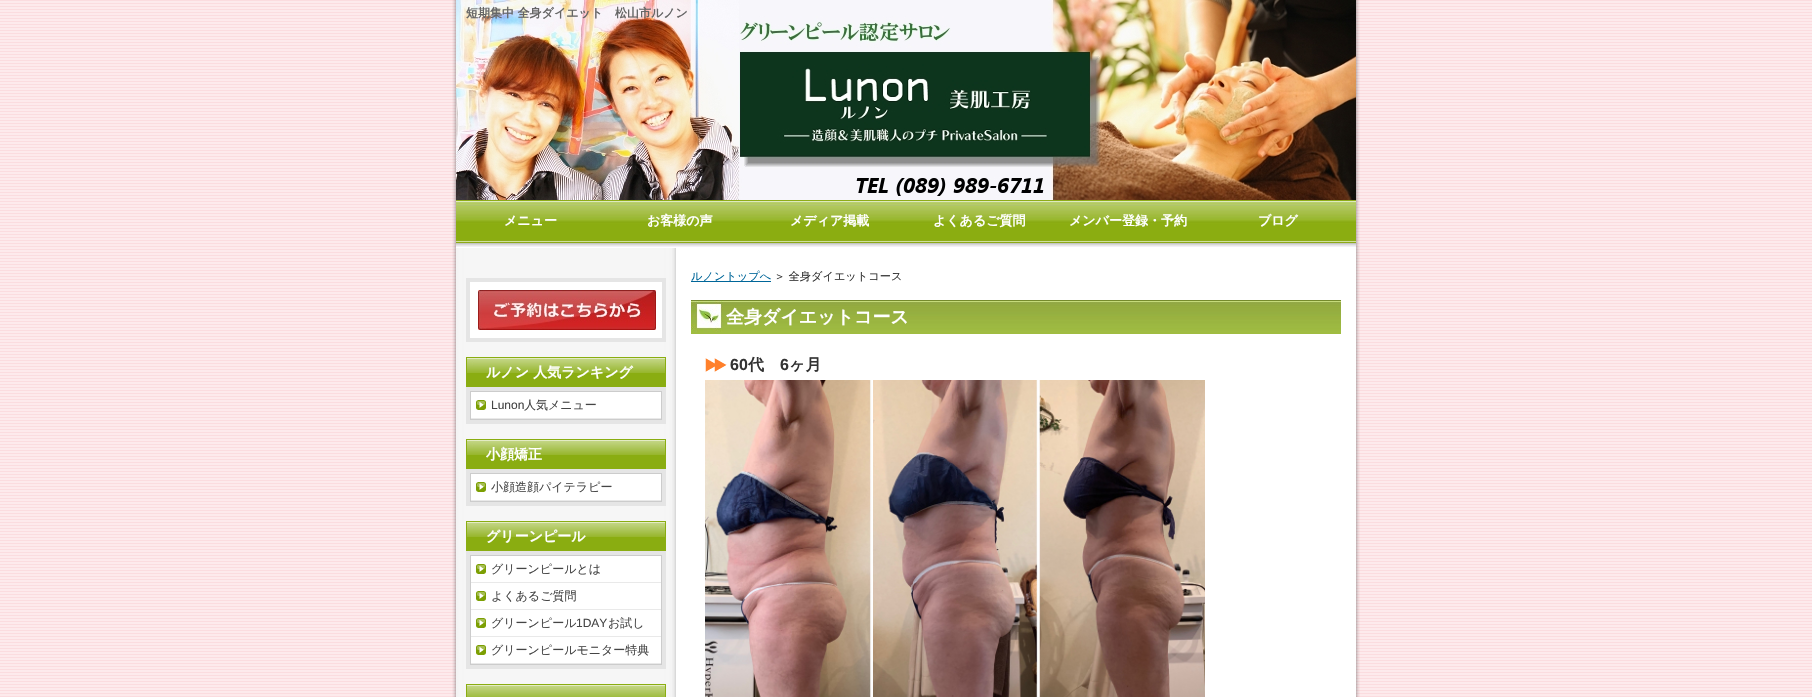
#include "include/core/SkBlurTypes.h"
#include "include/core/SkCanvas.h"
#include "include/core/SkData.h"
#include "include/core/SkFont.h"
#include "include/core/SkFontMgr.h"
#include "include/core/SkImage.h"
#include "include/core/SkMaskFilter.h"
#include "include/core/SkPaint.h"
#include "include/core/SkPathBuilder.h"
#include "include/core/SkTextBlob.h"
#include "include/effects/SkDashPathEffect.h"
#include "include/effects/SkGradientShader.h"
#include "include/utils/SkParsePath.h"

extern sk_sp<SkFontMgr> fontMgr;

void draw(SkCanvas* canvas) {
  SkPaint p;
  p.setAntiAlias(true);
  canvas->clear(SK_ColorWHITE);
  canvas->drawImageRect(SkImages::DeferredFromEncodedData(SkData::MakeFromFileName("images/1.png")), SkRect::MakeLTRB(0, 0, 1812, 697), SkSamplingOptions());
  canvas->drawImageRect(SkImages::DeferredFromEncodedData(SkData::MakeFromFileName("images/2.png")), SkRect::MakeLTRB(452, 0, 1360, 697), SkSamplingOptions());
  canvas->drawImageRect(SkImages::DeferredFromEncodedData(SkData::MakeFromFileName("images/3.png")), SkRect::MakeLTRB(456, 0, 1356, 200), SkSamplingOptions());
  canvas->drawImageRect(SkImages::DeferredFromEncodedData(SkData::MakeFromFileName("images/4.png")), SkRect::MakeLTRB(456, 200, 1356, 247), SkSamplingOptions());
  canvas->drawImageRect(SkImages::DeferredFromEncodedData(SkData::MakeFromFileName("images/5.png")), SkRect::MakeLTRB(456, 248, 676, 697), SkSamplingOptions());
  p.setColor(SkColorSetRGB(0, 102, 153));
  canvas->drawRect(SkRect::MakeLTRB(691, 281, 771, 282), p);
  canvas->drawImageRect(SkImages::DeferredFromEncodedData(SkData::MakeFromFileName("images/6.png")), SkRect::MakeLTRB(691, 300, 1341, 334), SkSamplingOptions());
  canvas->drawImageRect(SkImages::DeferredFromEncodedData(SkData::MakeFromFileName("images/7.png")), SkRect::MakeLTRB(705, 358, 727, 372), SkSamplingOptions());
  canvas->drawImageRect(SkImages::DeferredFromEncodedData(SkData::MakeFromFileName("images/8.png")), SkRect::MakeLTRB(705, 380, 1205, 697), SkSamplingOptions());
  p.setColor(SkColorSetRGB(229, 229, 229));
  canvas->drawRect(SkRect::MakeLTRB(466, 278, 666, 342), p);
  p.setColor(SK_ColorWHITE);
  canvas->drawRect(SkRect::MakeLTRB(470, 282, 662, 338), p);
  canvas->drawImageRect(SkImages::DeferredFromEncodedData(SkData::MakeFromFileName("images/9.png")), SkRect::MakeLTRB(478, 290, 656, 330), SkSamplingOptions());
  canvas->drawImageRect(SkImages::DeferredFromEncodedData(SkData::MakeFromFileName("images/10.png")), SkRect::MakeLTRB(466, 357, 666, 387), SkSamplingOptions());
  p.setColor(SkColorSetRGB(229, 229, 229));
  canvas->drawRect(SkRect::MakeLTRB(466, 387, 666, 424), p);
  p.setStyle(SkPaint::kStroke_Style);
  p.setStrokeWidth(1);
  p.setColor(SkColorSetRGB(204, 204, 204));
  canvas->drawRect(SkRect::MakeLTRB(470.5f, 391.5f, 661.5f, 419.5f), p);
  p.setStyle(SkPaint::kFill_Style);
  p.setColor(SkColorSetRGB(233, 233, 233));
  canvas->drawRect(SkRect::MakeLTRB(471, 418, 661, 419), p);
  p.setColor(SK_ColorWHITE);
  canvas->drawRect(SkRect::MakeLTRB(471, 392, 661, 418), p);
  canvas->drawImageRect(SkImages::DeferredFromEncodedData(SkData::MakeFromFileName("images/11.png")), SkRect::MakeLTRB(476, 400, 486, 410), SkSamplingOptions());
  canvas->drawImageRect(SkImages::DeferredFromEncodedData(SkData::MakeFromFileName("images/10.png")), SkRect::MakeLTRB(466, 439, 666, 469), SkSamplingOptions());
  p.setColor(SkColorSetRGB(229, 229, 229));
  canvas->drawRect(SkRect::MakeLTRB(466, 469, 666, 506), p);
  p.setStyle(SkPaint::kStroke_Style);
  p.setColor(SkColorSetRGB(204, 204, 204));
  canvas->drawRect(SkRect::MakeLTRB(470.5f, 473.5f, 661.5f, 501.5f), p);
  p.setStyle(SkPaint::kFill_Style);
  p.setColor(SkColorSetRGB(233, 233, 233));
  canvas->drawRect(SkRect::MakeLTRB(471, 500, 661, 501), p);
  p.setColor(SK_ColorWHITE);
  canvas->drawRect(SkRect::MakeLTRB(471, 474, 661, 500), p);
  canvas->drawImageRect(SkImages::DeferredFromEncodedData(SkData::MakeFromFileName("images/11.png")), SkRect::MakeLTRB(476, 482, 486, 492), SkSamplingOptions());
  canvas->drawImageRect(SkImages::DeferredFromEncodedData(SkData::MakeFromFileName("images/10.png")), SkRect::MakeLTRB(466, 521, 666, 551), SkSamplingOptions());
  p.setColor(SkColorSetRGB(229, 229, 229));
  canvas->drawRect(SkRect::MakeLTRB(466, 551, 666, 669), p);
  p.setStyle(SkPaint::kStroke_Style);
  p.setColor(SkColorSetRGB(204, 204, 204));
  canvas->drawRect(SkRect::MakeLTRB(470.5f, 555.5f, 661.5f, 664.5f), p);
  p.setStyle(SkPaint::kFill_Style);
  p.setColor(SkColorSetRGB(233, 233, 233));
  canvas->drawRect(SkRect::MakeLTRB(471, 582, 661, 583), p);
  p.setColor(SK_ColorWHITE);
  canvas->drawRect(SkRect::MakeLTRB(471, 556, 661, 582), p);
  canvas->drawImageRect(SkImages::DeferredFromEncodedData(SkData::MakeFromFileName("images/11.png")), SkRect::MakeLTRB(476, 564, 486, 574), SkSamplingOptions());
  p.setColor(SkColorSetRGB(233, 233, 233));
  canvas->drawRect(SkRect::MakeLTRB(471, 609, 661, 610), p);
  p.setColor(SK_ColorWHITE);
  canvas->drawRect(SkRect::MakeLTRB(471, 583, 661, 609), p);
  canvas->drawImageRect(SkImages::DeferredFromEncodedData(SkData::MakeFromFileName("images/11.png")), SkRect::MakeLTRB(476, 591, 486, 601), SkSamplingOptions());
  p.setColor(SkColorSetRGB(233, 233, 233));
  canvas->drawRect(SkRect::MakeLTRB(471, 636, 661, 637), p);
  p.setColor(SK_ColorWHITE);
  canvas->drawRect(SkRect::MakeLTRB(471, 610, 661, 636), p);
  canvas->drawImageRect(SkImages::DeferredFromEncodedData(SkData::MakeFromFileName("images/11.png")), SkRect::MakeLTRB(476, 618, 486, 628), SkSamplingOptions());
  p.setColor(SkColorSetRGB(233, 233, 233));
  canvas->drawRect(SkRect::MakeLTRB(471, 663, 661, 664), p);
  p.setColor(SK_ColorWHITE);
  canvas->drawRect(SkRect::MakeLTRB(471, 637, 661, 663), p);
  canvas->drawImageRect(SkImages::DeferredFromEncodedData(SkData::MakeFromFileName("images/11.png")), SkRect::MakeLTRB(476, 645, 486, 655), SkSamplingOptions());
  canvas->drawImageRect(SkImages::DeferredFromEncodedData(SkData::MakeFromFileName("images/12.png")), SkRect::MakeLTRB(466, 684, 666, 697), SkSamplingOptions());
  SkFont font1(fontMgr->matchFamilyStyle("WenQuanYi Zen Hei", SkFontStyle::Bold()), 12);
  font1.setSubpixel(true);
  p.setColor(SkColorSetRGB(102, 102, 102));
  canvas->drawString("短期集中 全身ダイエット　松山市ルノン", 466, 17, font1, p);
  SkFont font2(fontMgr->matchFamilyStyle("WenQuanYi Zen Hei", SkFontStyle::Bold()), 13);
  font2.setSubpixel(true);
  p.setColor(SK_ColorWHITE);
  canvas->drawString("メニュー", 504, 225, font2, p);
  canvas->drawString("お客様の声", 647, 225, font2, p);
  canvas->drawString("メディア掲載", 790, 225, font2, p);
  canvas->drawString("よくあるご質問", 933, 225, font2, p);
  canvas->drawString("メンバー登録・予約", 1069, 225, font2, p);
  canvas->drawString("ブログ", 1258, 225, font2, p);
  SkFont font3(fontMgr->matchFamilyStyle("WenQuanYi Zen Hei", SkFontStyle(500, SkFontStyle::kNormal_Width, SkFontStyle::kUpright_Slant)), 11.2f);
  font3.setSubpixel(true);
  p.setColor(SkColorSetRGB(0, 102, 153));
  canvas->drawString("ルノントップへ", 691, 280, font3, p);
  p.setColor(SkColorSetRGB(51, 51, 51));
  canvas->drawString("＞ 全身ダイエットコース", 774, 280, font3, p);
  SkFont font4(fontMgr->matchFamilyStyle("WenQuanYi Zen Hei", SkFontStyle::Bold()), 18);
  font4.setSubpixel(true);
  p.setColor(SK_ColorWHITE);
  canvas->drawString("全身ダイエットコース", 726, 323, font4, p);
  SkFont font5(fontMgr->matchFamilyStyle("Liberation Sans", SkFontStyle::Bold()), 16);
  font5.setSubpixel(true);
  p.setColor(SkColorSetRGB(51, 51, 51));
  canvas->drawString("60", 730, 370, font5, p);
  SkFont font6(fontMgr->matchFamilyStyle("WenQuanYi Zen Hei", SkFontStyle::Bold()), 16);
  font6.setSubpixel(true);
  canvas->drawString("代", 748, 370, font6, p);
  canvas->drawString("6", 780, 370, font5, p);
  canvas->drawString("ヶ月", 789, 370, font6, p);
  SkFont font7(fontMgr->matchFamilyStyle("WenQuanYi Zen Hei", SkFontStyle::Bold()), 14);
  font7.setSubpixel(true);
  p.setColor(SK_ColorWHITE);
  canvas->drawString("ルノン 人気ランキング", 486, 377, font7, p);
  SkFont font8(fontMgr->matchFamilyStyle("Liberation Sans", SkFontStyle::Normal()), 12);
  font8.setSubpixel(true);
  p.setColor(SkColorSetRGB(69, 69, 69));
  canvas->drawString("Lunon", 491, 409, font8, p);
  SkFont font9(fontMgr->matchFamilyStyle("WenQuanYi Zen Hei", SkFontStyle(500, SkFontStyle::kNormal_Width, SkFontStyle::kUpright_Slant)), 12);
  font9.setSubpixel(true);
  canvas->drawString("人気メニュー", 524, 409, font9, p);
  p.setColor(SK_ColorWHITE);
  canvas->drawString("小顔矯正", 486, 459, font7, p);
  p.setColor(SkColorSetRGB(69, 69, 69));
  canvas->drawString("小顔造顔パイテラピー", 491, 491, font9, p);
  p.setColor(SK_ColorWHITE);
  canvas->drawString("グリーンピール", 486, 541, font7, p);
  p.setColor(SkColorSetRGB(69, 69, 69));
  canvas->drawString("グリーンピールとは", 491, 573, font9, p);
  canvas->drawString("よくあるご質問", 491, 600, font9, p);
  canvas->drawString("グリーンピール", 491, 627, font9, p);
  canvas->drawString("1DAY", 576, 627, font8, p);
  canvas->drawString("お試し", 608, 627, font9, p);
  canvas->drawString("グリーンピールモニター特典", 491, 654, font9, p);
}
